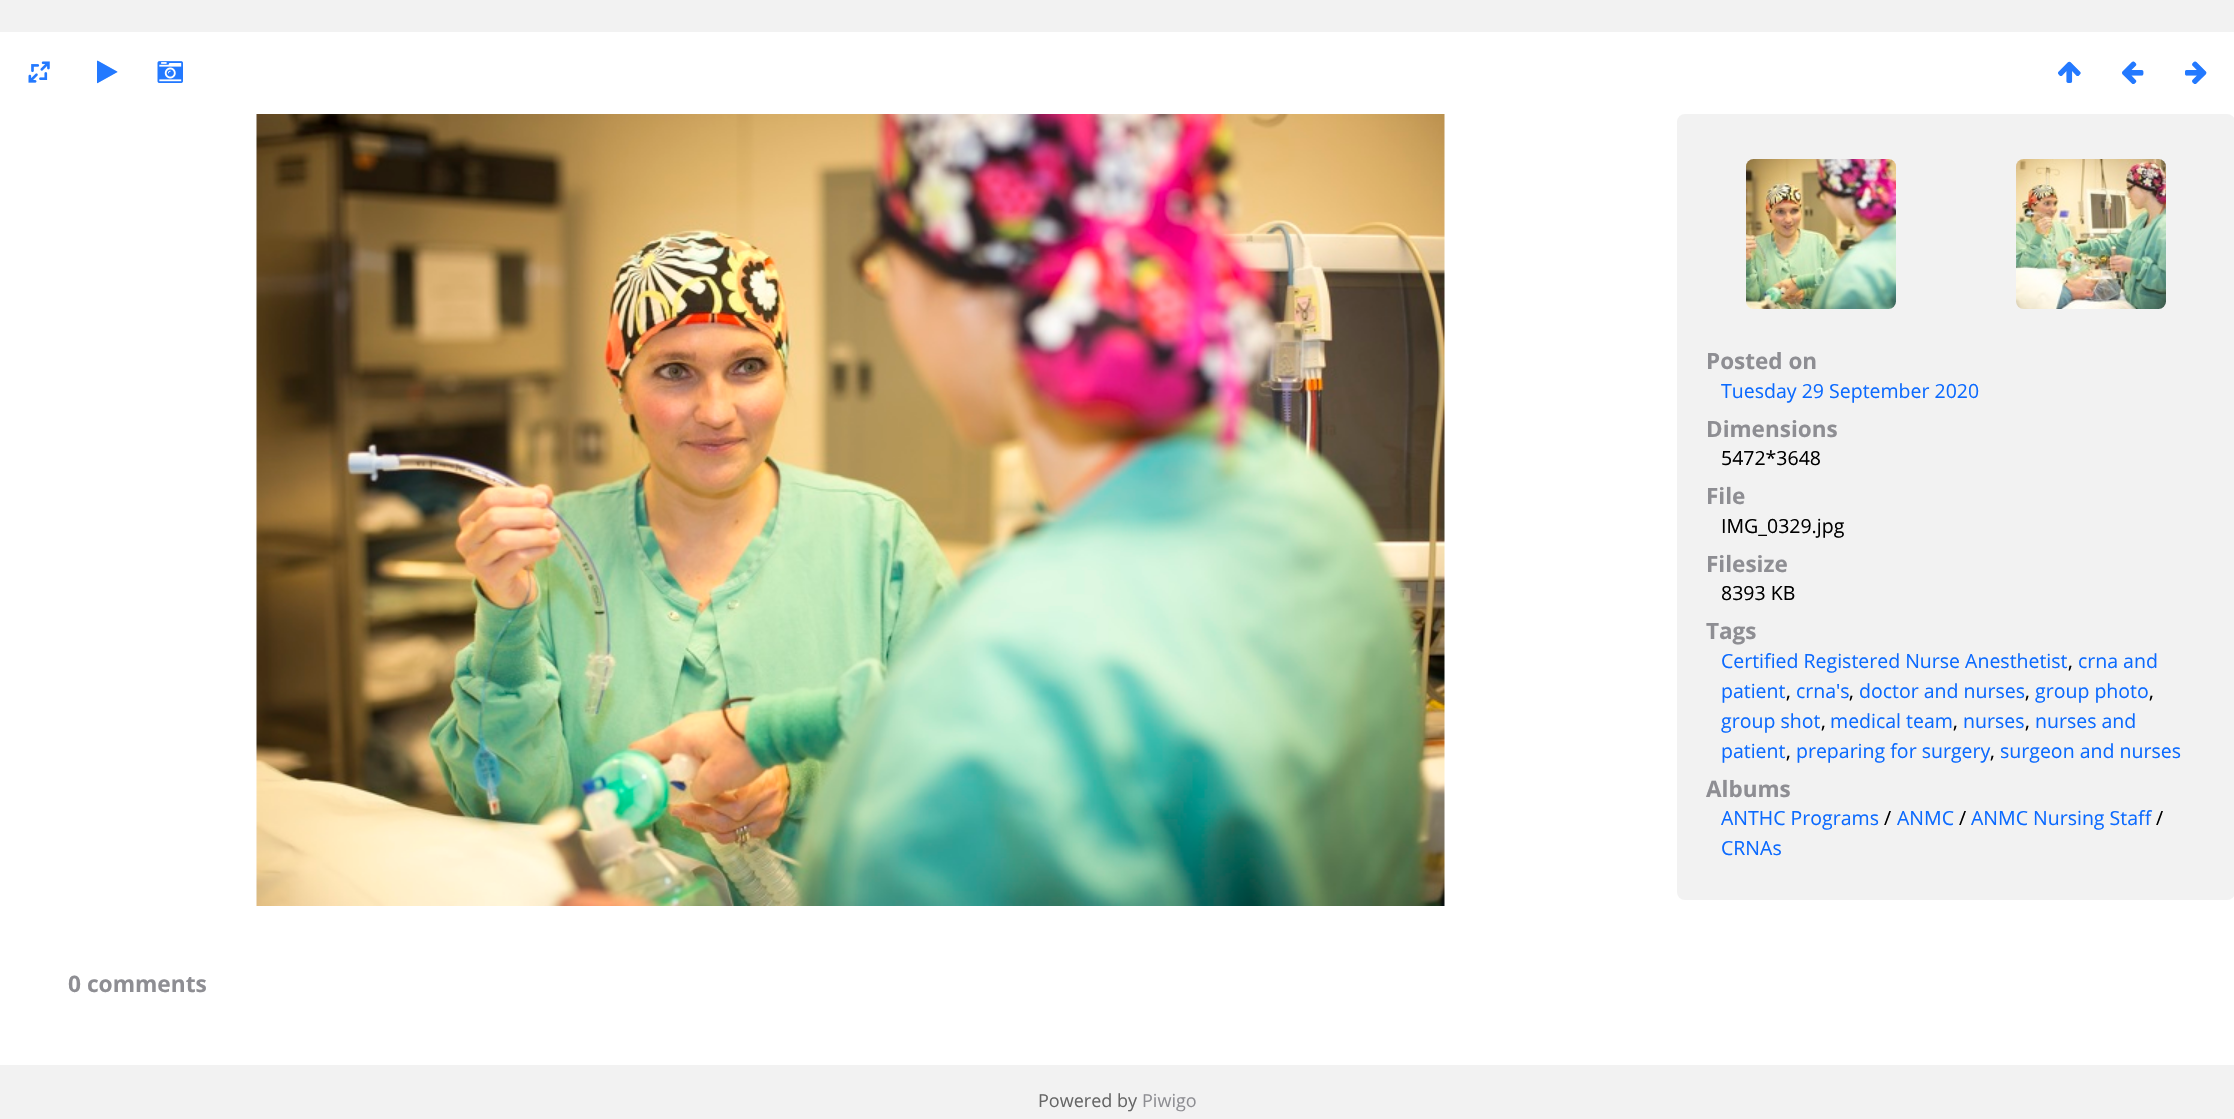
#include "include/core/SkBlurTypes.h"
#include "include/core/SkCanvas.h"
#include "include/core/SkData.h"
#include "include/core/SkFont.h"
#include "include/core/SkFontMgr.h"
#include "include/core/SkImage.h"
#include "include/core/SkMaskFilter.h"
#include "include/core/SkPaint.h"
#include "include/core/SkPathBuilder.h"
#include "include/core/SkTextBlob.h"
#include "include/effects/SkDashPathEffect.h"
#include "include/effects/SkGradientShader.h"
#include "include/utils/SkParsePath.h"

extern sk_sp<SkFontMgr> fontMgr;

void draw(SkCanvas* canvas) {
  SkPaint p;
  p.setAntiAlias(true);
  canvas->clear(SK_ColorWHITE);
  p.setColor(SkColorSetRGB(242, 242, 242));
  canvas->drawRect(SkRect::MakeLTRB(0, 0, 2234, 32), p);
  canvas->drawImageRect(SkImages::DeferredFromEncodedData(SkData::MakeFromFileName("images/1.png")), SkRect::MakeLTRB(28, 61, 50, 83), SkSamplingOptions());
  canvas->drawImageRect(SkImages::DeferredFromEncodedData(SkData::MakeFromFileName("images/2.png")), SkRect::MakeLTRB(157, 61, 183, 83), SkSamplingOptions());
  canvas->drawImageRect(SkImages::DeferredFromEncodedData(SkData::MakeFromFileName("images/3.png")), SkRect::MakeLTRB(256, 114, 1445, 906), SkSamplingOptions());
  canvas->drawRoundRect(SkRect::MakeLTRB(1677, 114, 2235, 900), 8, 8, p);
  canvas->drawImageRect(SkImages::DeferredFromEncodedData(SkData::MakeFromFileName("images/4.png")), SkRect::MakeLTRB(1746, 159, 1896, 309), SkSamplingOptions());
  canvas->drawImageRect(SkImages::DeferredFromEncodedData(SkData::MakeFromFileName("images/5.png")), SkRect::MakeLTRB(2016, 159, 2166, 309), SkSamplingOptions());
  canvas->drawRect(SkRect::MakeLTRB(0, 1065, 2234, 1119), p);
  SkFont font1(fontMgr->matchFamilyStyle("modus", SkFontStyle::Normal()), 26);
  font1.setSubpixel(true);
  p.setColor(SkColorSetRGB(35, 121, 255));
  canvas->drawString("▶", 97, 81, font1, p);
  canvas->drawString("↑", 2058, 81, font1, p);
  canvas->drawString("←", 2122, 81, font1, p);
  canvas->drawString("→", 2185, 81, font1, p);
  SkFont font2(fontMgr->matchFamilyStyle("Open Sans", SkFontStyle::Bold()), 22.5f);
  font2.setSubpixel(true);
  p.setColor(SkColorSetRGB(142, 142, 147));
  canvas->drawString("Posted on", 1706, 369, font2, p);
  SkFont font3(fontMgr->matchFamilyStyle("Open Sans", SkFontStyle::Normal()), 19.5f);
  font3.setSubpixel(true);
  p.setColor(SkColorSetRGB(11, 106, 255));
  canvas->drawString("Tuesday 29 September 2020", 1721, 398, font3, p);
  p.setColor(SkColorSetRGB(142, 142, 147));
  canvas->drawString("Dimensions", 1706, 437, font2, p);
  p.setColor(SK_ColorBLACK);
  canvas->drawString("5472*3648", 1721, 465, font3, p);
  p.setColor(SkColorSetRGB(142, 142, 147));
  canvas->drawString("File", 1706, 504, font2, p);
  p.setColor(SK_ColorBLACK);
  canvas->drawString("IMG_0329.jpg", 1721, 533, font3, p);
  p.setColor(SkColorSetRGB(142, 142, 147));
  canvas->drawString("Filesize", 1706, 572, font2, p);
  p.setColor(SK_ColorBLACK);
  canvas->drawString("8393 KB", 1721, 600, font3, p);
  p.setColor(SkColorSetRGB(142, 142, 147));
  canvas->drawString("Tags", 1706, 639, font2, p);
  p.setColor(SkColorSetRGB(11, 106, 255));
  canvas->drawString("Certified Registered Nurse Anesthetist", 1721, 668, font3, p);
  p.setColor(SK_ColorBLACK);
  canvas->drawString(",", 2068, 668, font3, p);
  p.setColor(SkColorSetRGB(11, 106, 255));
  canvas->drawString("crna and", 2078, 668, font3, p);
  canvas->drawString("patient", 1721, 698, font3, p);
  p.setColor(SK_ColorBLACK);
  canvas->drawString(",", 1786, 698, font3, p);
  p.setColor(SkColorSetRGB(11, 106, 255));
  canvas->drawString("crna's", 1796, 698, font3, p);
  p.setColor(SK_ColorBLACK);
  canvas->drawString(",", 1849, 698, font3, p);
  p.setColor(SkColorSetRGB(11, 106, 255));
  canvas->drawString("doctor and nurses", 1859, 698, font3, p);
  p.setColor(SK_ColorBLACK);
  canvas->drawString(",", 2025, 698, font3, p);
  p.setColor(SkColorSetRGB(11, 106, 255));
  canvas->drawString("group photo", 2035, 698, font3, p);
  p.setColor(SK_ColorBLACK);
  canvas->drawString(",", 2149, 698, font3, p);
  p.setColor(SkColorSetRGB(11, 106, 255));
  canvas->drawString("group shot", 1721, 728, font3, p);
  p.setColor(SK_ColorBLACK);
  canvas->drawString(",", 1821, 728, font3, p);
  p.setColor(SkColorSetRGB(11, 106, 255));
  canvas->drawString("medical team", 1830, 728, font3, p);
  p.setColor(SK_ColorBLACK);
  canvas->drawString(",", 1953, 728, font3, p);
  p.setColor(SkColorSetRGB(11, 106, 255));
  canvas->drawString("nurses", 1963, 728, font3, p);
  p.setColor(SK_ColorBLACK);
  canvas->drawString(",", 2025, 728, font3, p);
  p.setColor(SkColorSetRGB(11, 106, 255));
  canvas->drawString("nurses and", 2035, 728, font3, p);
  canvas->drawString("patient", 1721, 758, font3, p);
  p.setColor(SK_ColorBLACK);
  canvas->drawString(",", 1786, 758, font3, p);
  p.setColor(SkColorSetRGB(11, 106, 255));
  canvas->drawString("preparing for surgery", 1796, 758, font3, p);
  p.setColor(SK_ColorBLACK);
  canvas->drawString(",", 1990, 758, font3, p);
  p.setColor(SkColorSetRGB(11, 106, 255));
  canvas->drawString("surgeon and nurses", 2000, 758, font3, p);
  p.setColor(SkColorSetRGB(142, 142, 147));
  canvas->drawString("Albums", 1706, 797, font2, p);
  p.setColor(SkColorSetRGB(11, 106, 255));
  canvas->drawString("ANTHC Programs", 1721, 825, font3, p);
  p.setColor(SK_ColorBLACK);
  canvas->drawString("/", 1884, 825, font3, p);
  p.setColor(SkColorSetRGB(11, 106, 255));
  canvas->drawString("ANMC", 1897, 825, font3, p);
  p.setColor(SK_ColorBLACK);
  canvas->drawString("/", 1959, 825, font3, p);
  p.setColor(SkColorSetRGB(11, 106, 255));
  canvas->drawString("ANMC Nursing Staff", 1971, 825, font3, p);
  p.setColor(SK_ColorBLACK);
  canvas->drawString("/", 2156, 825, font3, p);
  p.setColor(SkColorSetRGB(11, 106, 255));
  canvas->drawString("CRNAs", 1721, 855, font3, p);
  SkFont font4(fontMgr->matchFamilyStyle("Open Sans", SkFontStyle::Bold()), 22.75f);
  font4.setSubpixel(true);
  p.setColor(SkColorSetRGB(142, 142, 147));
  canvas->drawString("0 comments", 68, 992, font4, p);
  SkFont font5(fontMgr->matchFamilyStyle("Open Sans", SkFontStyle::Normal()), 18);
  font5.setSubpixel(true);
  p.setColor(SkColorSetRGB(102, 102, 102));
  canvas->drawString("Powered by", 1038, 1107, font5, p);
  p.setColor(SkColorSetRGB(142, 142, 147));
  canvas->drawString("Piwigo", 1142, 1107, font5, p);
}
